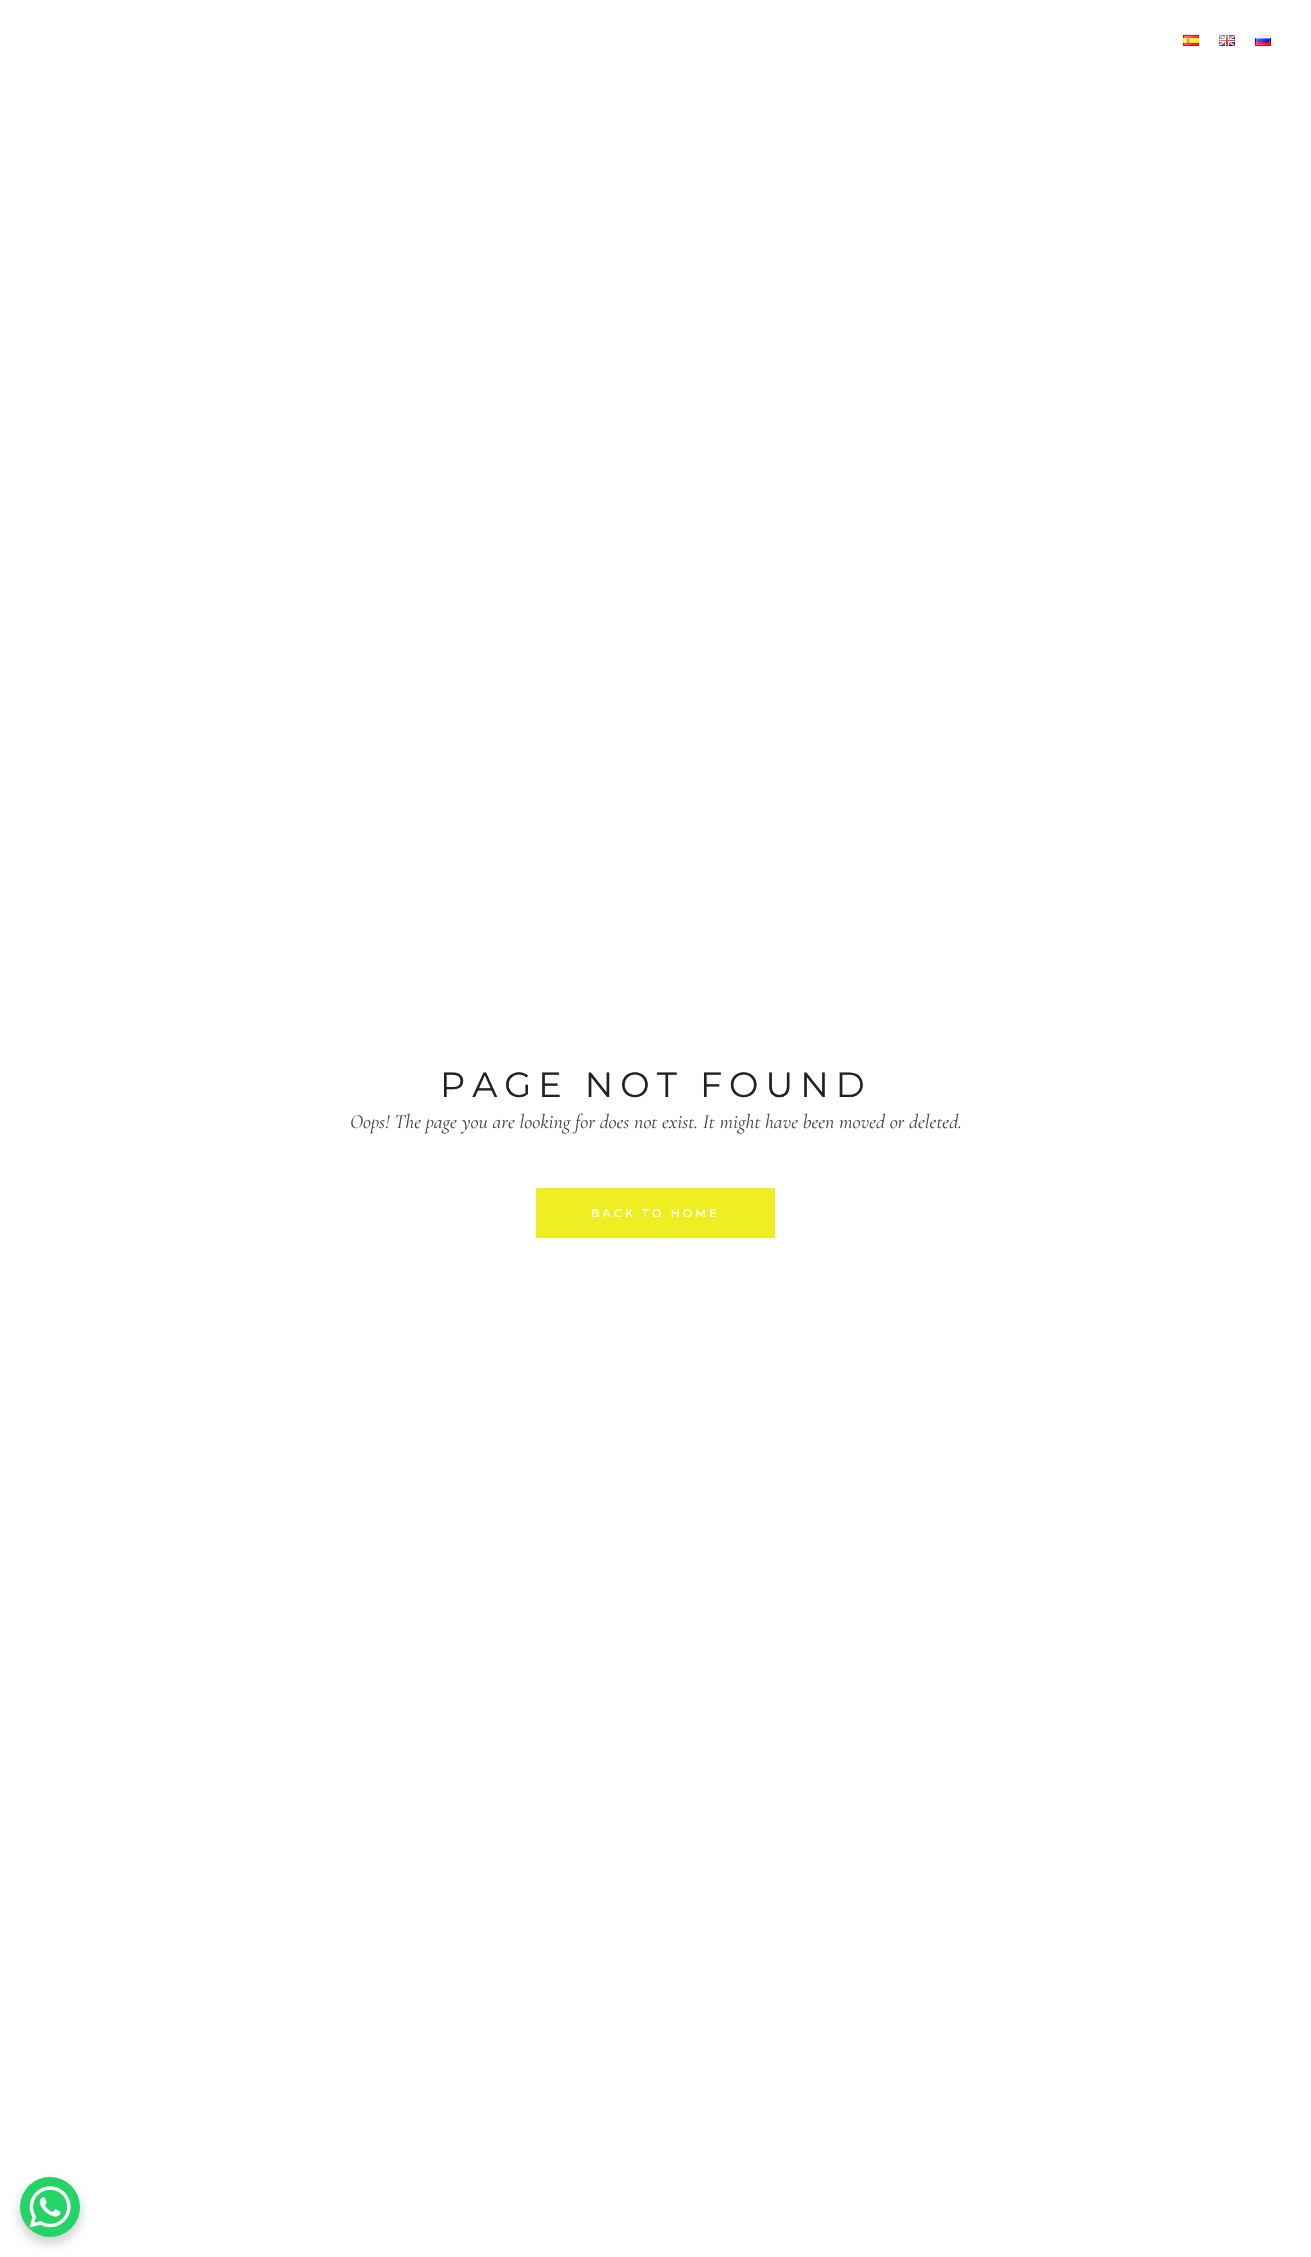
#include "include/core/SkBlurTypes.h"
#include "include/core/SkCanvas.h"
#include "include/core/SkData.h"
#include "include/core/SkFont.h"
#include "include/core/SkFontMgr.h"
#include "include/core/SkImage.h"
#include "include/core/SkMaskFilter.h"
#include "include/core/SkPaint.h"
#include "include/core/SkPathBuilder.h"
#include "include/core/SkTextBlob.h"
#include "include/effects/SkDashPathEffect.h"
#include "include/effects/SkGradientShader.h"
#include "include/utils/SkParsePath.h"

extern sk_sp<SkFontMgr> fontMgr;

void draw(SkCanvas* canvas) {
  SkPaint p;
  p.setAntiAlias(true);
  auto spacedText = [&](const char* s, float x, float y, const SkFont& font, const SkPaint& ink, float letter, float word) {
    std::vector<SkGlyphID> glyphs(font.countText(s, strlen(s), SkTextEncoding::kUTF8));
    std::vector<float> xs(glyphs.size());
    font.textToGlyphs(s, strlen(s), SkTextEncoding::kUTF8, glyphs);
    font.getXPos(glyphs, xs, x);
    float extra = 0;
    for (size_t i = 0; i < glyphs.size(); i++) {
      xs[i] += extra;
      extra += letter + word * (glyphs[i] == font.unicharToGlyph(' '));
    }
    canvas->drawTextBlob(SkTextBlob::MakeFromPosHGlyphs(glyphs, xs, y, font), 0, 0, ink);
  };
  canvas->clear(SK_ColorWHITE);
  canvas->drawImageRect(SkImages::DeferredFromEncodedData(SkData::MakeFromFileName("images/1.png")), SkRect::MakeLTRB(1183, 35, 1199, 46), SkSamplingOptions());
  canvas->drawImageRect(SkImages::DeferredFromEncodedData(SkData::MakeFromFileName("images/2.png")), SkRect::MakeLTRB(1219, 35, 1235, 46), SkSamplingOptions());
  canvas->drawImageRect(SkImages::DeferredFromEncodedData(SkData::MakeFromFileName("images/3.png")), SkRect::MakeLTRB(1255, 35, 1271, 46), SkSamplingOptions());
  p.setColor(SkColorSetRGB(238, 238, 34));
  canvas->drawRect(SkRect::MakeLTRB(536, 1188, 775, 1238), p);
  p.setColor(SkColorSetARGB(38, 0, 0, 0));
  p.setMaskFilter(SkMaskFilter::MakeBlur(kNormal_SkBlurStyle, 4));
  canvas->drawRoundRect(SkRect::MakeLTRB(18, 2181, 82, 2245), 32, 32, p);
  p.setMaskFilter(nullptr);
  p.setColor(SkColorSetRGB(37, 211, 102));
  canvas->drawCircle(50, 2207, 30, p);
  canvas->drawImageRect(SkImages::DeferredFromEncodedData(SkData::MakeFromFileName("images/4.png")), SkRect::MakeLTRB(29, 2186, 71, 2228), SkSamplingOptions());
  SkFont font1(fontMgr->matchFamilyStyle("Montserrat", SkFontStyle::Normal()), 35);
  font1.setSubpixel(true);
  p.setColor(SkColorSetRGB(34, 34, 34));
  spacedText("PAGE NOT FOUND", 440, 1097, font1, p, 7, 0);
  SkFont font2(fontMgr->matchFamilyStyle("Cormorant Garamond", SkFontStyle::Italic()), 20);
  font2.setSubpixel(true);
  p.setColor(SkColorSetRGB(68, 68, 68));
  canvas->drawString("Oops! The page you are looking for does not exist. It might have been moved or deleted.", 350, 1128, font2, p);
  SkFont font3(fontMgr->matchFamilyStyle("Montserrat", SkFontStyle(500, SkFontStyle::kNormal_Width, SkFontStyle::kUpright_Slant)), 11);
  font3.setSubpixel(true);
  p.setColor(SK_ColorWHITE);
  spacedText("BACK TO HOME", 591, 1217, font3, p, 3.25f, 0);
}
